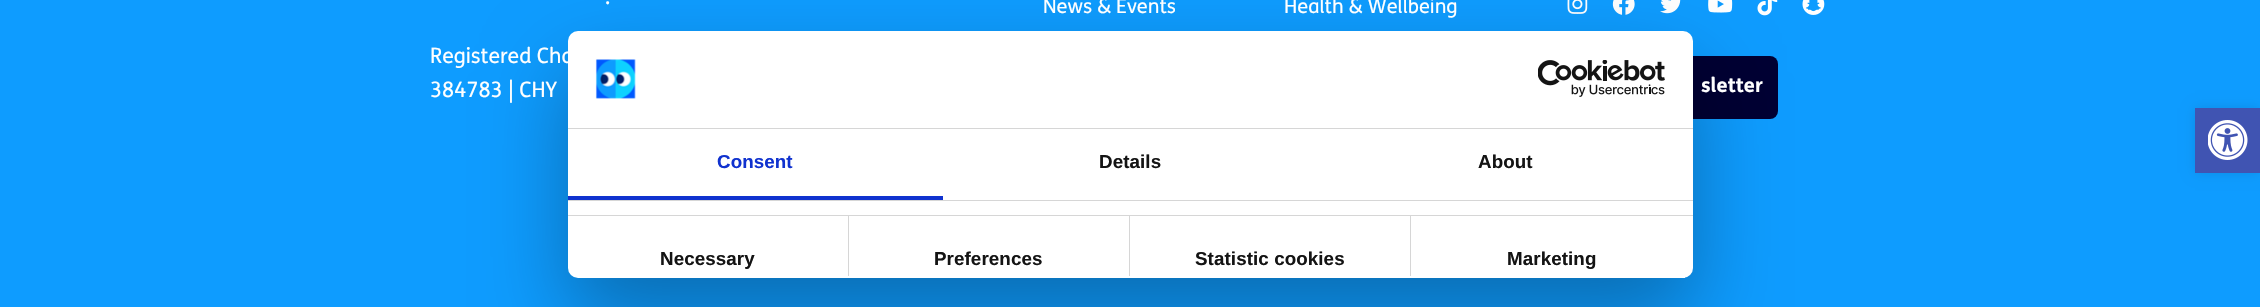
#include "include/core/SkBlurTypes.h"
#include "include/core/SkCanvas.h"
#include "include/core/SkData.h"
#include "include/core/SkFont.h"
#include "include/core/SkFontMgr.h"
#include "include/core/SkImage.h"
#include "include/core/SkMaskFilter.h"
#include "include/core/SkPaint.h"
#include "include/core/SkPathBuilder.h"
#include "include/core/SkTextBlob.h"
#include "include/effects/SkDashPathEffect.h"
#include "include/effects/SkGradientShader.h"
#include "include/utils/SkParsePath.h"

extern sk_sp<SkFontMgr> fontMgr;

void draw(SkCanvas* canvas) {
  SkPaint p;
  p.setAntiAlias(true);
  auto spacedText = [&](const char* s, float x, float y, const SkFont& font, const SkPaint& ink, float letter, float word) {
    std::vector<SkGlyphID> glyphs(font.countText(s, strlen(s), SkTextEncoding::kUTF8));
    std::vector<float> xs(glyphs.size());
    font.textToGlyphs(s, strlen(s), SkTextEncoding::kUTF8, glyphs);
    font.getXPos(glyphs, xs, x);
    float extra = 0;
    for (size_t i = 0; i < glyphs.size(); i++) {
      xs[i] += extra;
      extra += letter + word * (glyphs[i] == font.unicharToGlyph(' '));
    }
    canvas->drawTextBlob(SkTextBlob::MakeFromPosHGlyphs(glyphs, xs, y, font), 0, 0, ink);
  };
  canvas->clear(SkColorSetRGB(14, 156, 255));
  canvas->drawImageRect(SkImages::DeferredFromEncodedData(SkData::MakeFromFileName("images/1.png")), SkRect::MakeLTRB(1567, 0, 1588, 14), SkSamplingOptions());
  canvas->drawImageRect(SkImages::DeferredFromEncodedData(SkData::MakeFromFileName("images/2.png")), SkRect::MakeLTRB(1612, 0, 1635, 15), SkSamplingOptions());
  canvas->drawImageRect(SkImages::DeferredFromEncodedData(SkData::MakeFromFileName("images/3.png")), SkRect::MakeLTRB(1660, 0, 1681, 14), SkSamplingOptions());
  canvas->drawImageRect(SkImages::DeferredFromEncodedData(SkData::MakeFromFileName("images/4.png")), SkRect::MakeLTRB(1708, 0, 1733, 13), SkSamplingOptions());
  canvas->drawImageRect(SkImages::DeferredFromEncodedData(SkData::MakeFromFileName("images/5.png")), SkRect::MakeLTRB(1757, 0, 1778, 16), SkSamplingOptions());
  canvas->drawImageRect(SkImages::DeferredFromEncodedData(SkData::MakeFromFileName("images/6.png")), SkRect::MakeLTRB(1802, 0, 1825, 15), SkSamplingOptions());
  p.setColor(SkColorSetRGB(0, 0, 51));
  canvas->drawRoundRect(SkRect::MakeLTRB(1568, 56, 1778, 119), 8, 8, p);
  p.setColor(SkColorSetARGB(26, 0, 0, 0));
  p.setMaskFilter(SkMaskFilter::MakeBlur(kNormal_SkBlurStyle, 6));
  canvas->drawRect(SkRect::MakeLTRB(2195, 108, 2260, 173), p);
  p.setMaskFilter(nullptr);
  p.setColor(SkColorSetRGB(64, 84, 178));
  canvas->drawRect(SkRect::MakeLTRB(2195, 108, 2260, 173), p);
  canvas->drawImageRect(SkImages::DeferredFromEncodedData(SkData::MakeFromFileName("images/7.png")), SkRect::MakeLTRB(2208, 120, 2248, 160), SkSamplingOptions());
  p.setColor(SkColorSetARGB(77, 0, 0, 0));
  p.setMaskFilter(SkMaskFilter::MakeBlur(kNormal_SkBlurStyle, 42.5f));
  canvas->drawRoundRect(SkRect::MakeLTRB(568, 71, 1693, 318), 10, 10, p);
  p.setMaskFilter(nullptr);
  p.setColor(SK_ColorWHITE);
  canvas->drawRoundRect(SkRect::MakeLTRB(568, 31, 1693, 278), 10, 10, p);
  p.setColor(SkColorSetRGB(214, 214, 214));
  canvas->drawRect(SkRect::MakeLTRB(568, 128, 1693, 129), p);
  canvas->drawImageRect(SkImages::DeferredFromEncodedData(SkData::MakeFromFileName("images/8.png")), SkRect::MakeLTRB(595, 59, 636, 99), SkSamplingOptions());
  canvas->drawImageRect(SkImages::DeferredFromEncodedData(SkData::MakeFromFileName("images/9.png")), SkRect::MakeLTRB(1538, 60, 1665, 97), SkSamplingOptions());
  canvas->drawRect(SkRect::MakeLTRB(568, 200, 1693, 201), p);
  p.setColor(SkColorSetRGB(16, 50, 207));
  canvas->drawRect(SkRect::MakeLTRB(568, 196, 943, 200), p);
  p.setColor(SkColorSetRGB(214, 214, 214));
  canvas->drawRect(SkRect::MakeLTRB(568, 215, 1693, 216), p);
  canvas->drawRect(SkRect::MakeLTRB(848, 216, 849, 276), p);
  canvas->drawRect(SkRect::MakeLTRB(1129, 216, 1130, 276), p);
  canvas->drawRect(SkRect::MakeLTRB(1410, 216, 1411, 276), p);
  p.setColor(SK_ColorWHITE);
  canvas->drawRect(SkRect::MakeLTRB(1683, 277, 1685, 278), p);
  SkFont font1(fontMgr->matchFamilyStyle("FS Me", SkFontStyle::Normal()), 21.25f);
  font1.setSubpixel(true);
  canvas->drawString(".", 605, 4, font1, p);
  canvas->drawString("Registered Cha", 430, 63, font1, p);
  canvas->drawString("384783 | CHY", 430, 97, font1, p);
  SkFont font2(fontMgr->matchFamilyStyle("FS Me", SkFontStyle::Normal()), 20);
  font2.setSubpixel(true);
  canvas->drawString("News & Events", 1043, 13, font2, p);
  canvas->drawString("Health & Wellbeing", 1284, 13, font2, p);
  SkFont font3(fontMgr->matchFamilyStyle("FS Me", SkFontStyle::Bold()), 20);
  font3.setSubpixel(true);
  canvas->drawString("sletter", 1701, 92, font3, p);
  SkFont font4(fontMgr->matchFamilyStyle("Liberation Sans", SkFontStyle::Bold()), 18.75f);
  font4.setSubpixel(true);
  p.setColor(SkColorSetRGB(16, 50, 207));
  spacedText("Consent", 717, 168, font4, p, 0.1f, 0);
  p.setColor(SkColorSetRGB(20, 20, 20));
  spacedText("Details", 1099, 168, font4, p, 0.1f, 0);
  spacedText("About", 1478, 168, font4, p, 0.1f, 0);
  spacedText("Necessary", 660, 265, font4, p, 0.1f, 0);
  spacedText("Preferences", 934, 265, font4, p, 0.1f, 0);
  spacedText("Statistic cookies", 1195, 265, font4, p, 0.1f, 0);
  spacedText("Marketing", 1507, 265, font4, p, 0.1f, 0);
}
